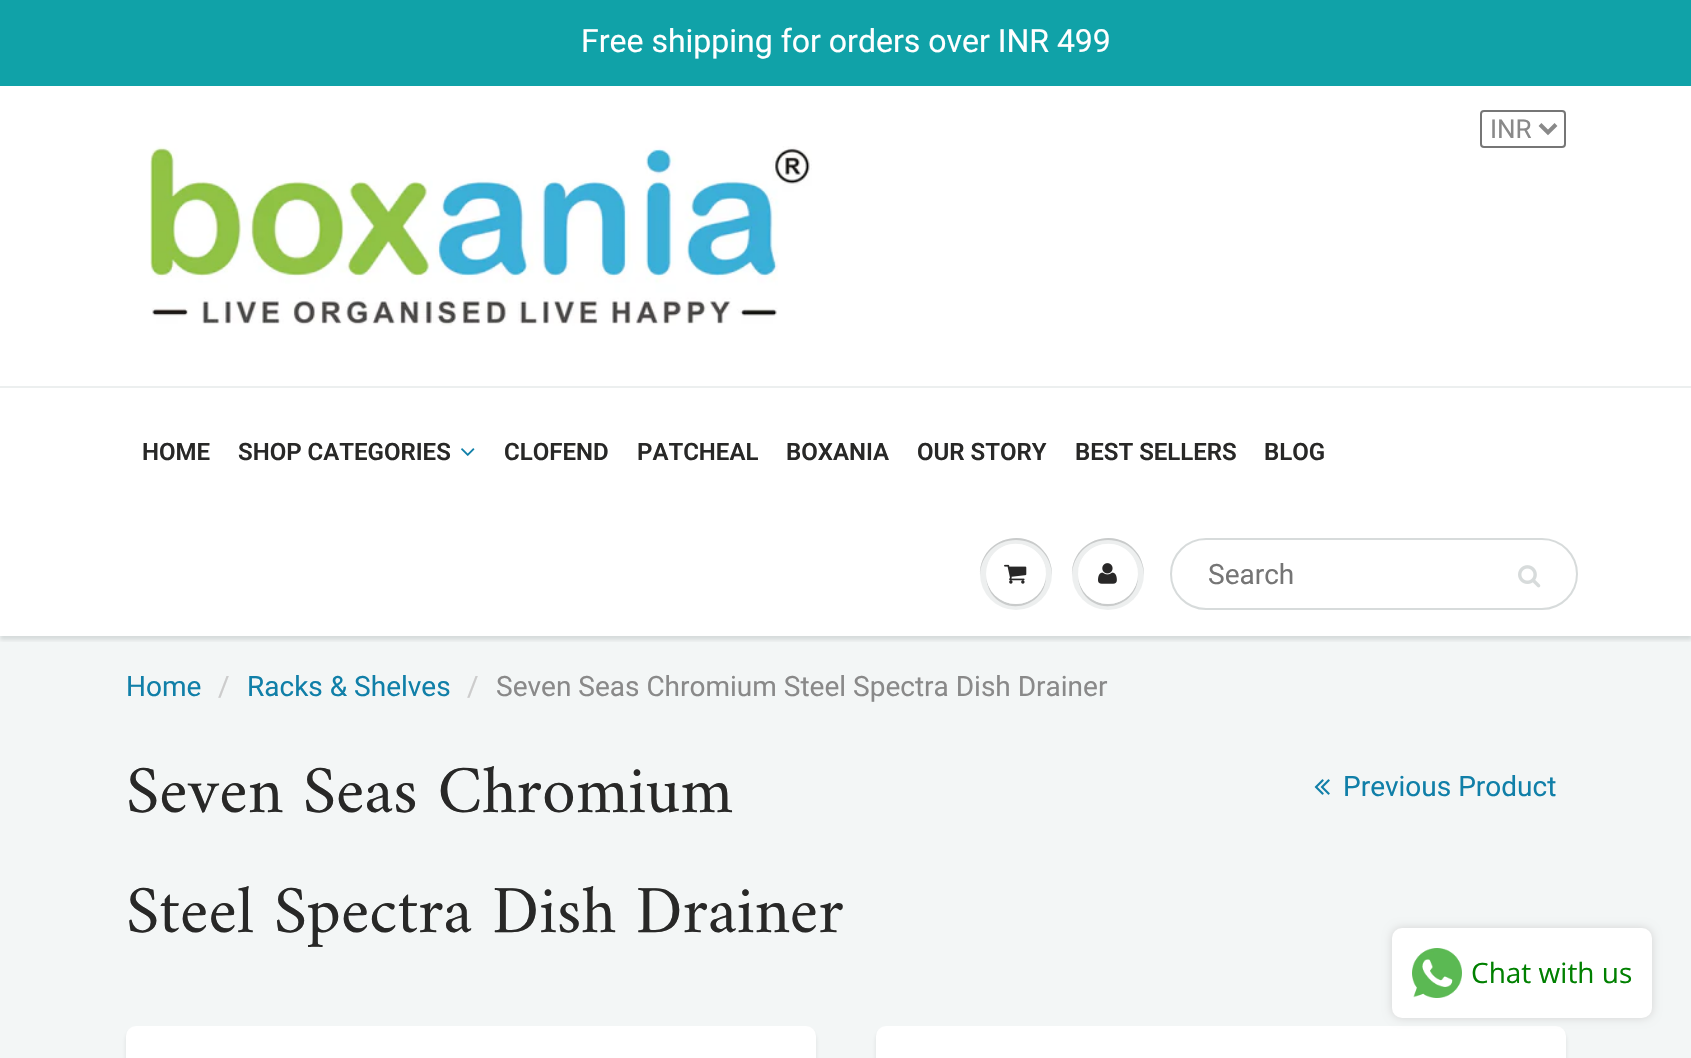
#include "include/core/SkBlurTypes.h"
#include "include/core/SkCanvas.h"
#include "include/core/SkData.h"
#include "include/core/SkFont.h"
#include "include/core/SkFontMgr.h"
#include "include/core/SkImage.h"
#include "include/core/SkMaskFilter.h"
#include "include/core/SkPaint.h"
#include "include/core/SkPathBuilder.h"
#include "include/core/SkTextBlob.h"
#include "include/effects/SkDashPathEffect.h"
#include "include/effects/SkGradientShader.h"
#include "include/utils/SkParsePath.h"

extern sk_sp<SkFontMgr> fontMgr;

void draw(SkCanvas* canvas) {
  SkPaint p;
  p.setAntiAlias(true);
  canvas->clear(SK_ColorWHITE);
  p.setColor(SkColorSetRGB(16, 162, 168));
  canvas->drawRect(SkRect::MakeLTRB(0, 0, 1691, 86), p);
  p.setStyle(SkPaint::kStroke_Style);
  p.setStrokeWidth(2);
  p.setColor(SkColorSetRGB(118, 118, 118));
  canvas->drawRoundRect(SkRect::MakeLTRB(1481, 111, 1565, 147), 3, 3, p);
  p.setStrokeWidth(4);
  p.setColor(SkColorSetRGB(137, 137, 137));
  canvas->drawPath(SkPathBuilder().moveTo(1540, 124.5f).lineTo(1548, 132.5f).lineTo(1556, 124.5f).detach(), p);
  canvas->drawImageRect(SkImages::DeferredFromEncodedData(SkData::MakeFromFileName("images/1.png")), SkRect::MakeLTRB(150, 146, 812, 326), SkSamplingOptions());
  p.setStyle(SkPaint::kFill_Style);
  p.setColor(SkColorSetRGB(243, 246, 246));
  canvas->drawRect(SkRect::MakeLTRB(0, 636, 1691, 1058), p);
  canvas->save();
  canvas->clipRect(SkRect::MakeLTRB(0, 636, 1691, 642));
  p.setColor(SkColorSetARGB(31, 11, 25, 28));
  p.setMaskFilter(SkMaskFilter::MakeBlur(kNormal_SkBlurStyle, 2));
  canvas->drawRect(SkRect::MakeLTRB(0, 390, 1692, 640), p);
  p.setMaskFilter(nullptr);
  canvas->restore();
  p.setColor(SkColorSetRGB(236, 239, 239));
  canvas->drawRect(SkRect::MakeLTRB(0, 386, 1691, 388), p);
  canvas->drawImageRect(SkImages::DeferredFromEncodedData(SkData::MakeFromFileName("images/2.png")), SkRect::MakeLTRB(461, 448, 475, 456), SkSamplingOptions());
  p.setColor(SkColorSetRGB(237, 239, 239));
  canvas->drawCircle(1016, 574, 36, p);
  p.setColor(SkColorSetRGB(201, 203, 203));
  canvas->drawPath(SkPathBuilder().moveTo(1046, 575).cubicTo(1045, 591, 1032, 604, 1016, 604).cubicTo(1000, 604, 987, 591, 986, 575).cubicTo(986, 581, 988, 588, 991, 593).cubicTo(1008, 618, 1047, 605, 1046, 575).close().detach(), p);
  canvas->drawPath(SkPathBuilder().moveTo(1016, 540).cubicTo(1036, 540, 1051, 555, 1052, 575).cubicTo(1052, 568, 1050, 560, 1046, 554).cubicTo(1026, 524, 979, 539, 980, 575).cubicTo(981, 555, 996, 540, 1016, 540).close().detach(), p);
  p.setColor(SK_ColorWHITE);
  canvas->drawCircle(1016, 574, 30, p);
  canvas->drawPath(SkPathBuilder().moveTo(1016, 546).cubicTo(1033, 546, 1045, 558, 1046, 575).cubicTo(1047, 545, 1008, 532, 991, 557).cubicTo(988, 562, 986, 569, 986, 575).cubicTo(987, 558, 999, 546, 1016, 546).close().detach(), p);
  canvas->drawImageRect(SkImages::DeferredFromEncodedData(SkData::MakeFromFileName("images/3.png")), SkRect::MakeLTRB(1004, 564, 1027, 584), SkSamplingOptions());
  p.setColor(SkColorSetRGB(237, 239, 239));
  canvas->drawCircle(1108, 574, 36, p);
  p.setColor(SkColorSetRGB(201, 203, 203));
  canvas->drawPath(SkPathBuilder().moveTo(1138, 575).cubicTo(1137, 591, 1124, 604, 1108, 604).cubicTo(1092, 604, 1079, 591, 1078, 575).cubicTo(1078, 581, 1080, 588, 1083, 593).cubicTo(1100, 618, 1139, 605, 1138, 575).close().detach(), p);
  canvas->drawPath(SkPathBuilder().moveTo(1108, 540).cubicTo(1128, 540, 1143, 555, 1144, 575).cubicTo(1144, 568, 1142, 560, 1138, 554).cubicTo(1118, 524, 1071, 539, 1072, 575).cubicTo(1073, 555, 1088, 540, 1108, 540).close().detach(), p);
  p.setColor(SK_ColorWHITE);
  canvas->drawCircle(1108, 574, 30, p);
  canvas->drawPath(SkPathBuilder().moveTo(1108, 546).cubicTo(1125, 546, 1137, 558, 1138, 575).cubicTo(1138, 569, 1136, 562, 1133, 557).cubicTo(1116, 532, 1077, 545, 1078, 575).cubicTo(1079, 558, 1091, 546, 1108, 546).close().detach(), p);
  canvas->drawImageRect(SkImages::DeferredFromEncodedData(SkData::MakeFromFileName("images/4.png")), SkRect::MakeLTRB(1098, 563, 1117, 584), SkSamplingOptions());
  p.setStyle(SkPaint::kStroke_Style);
  p.setStrokeWidth(2);
  p.setColor(SkColorSetRGB(215, 219, 219));
  canvas->drawRoundRect(SkRect::MakeLTRB(1171, 539, 1577, 609), 35, 35, p);
  canvas->drawImageRect(SkImages::DeferredFromEncodedData(SkData::MakeFromFileName("images/5.png")), SkRect::MakeLTRB(1518, 565, 1541, 588), SkSamplingOptions());
  canvas->drawImageRect(SkImages::DeferredFromEncodedData(SkData::MakeFromFileName("images/6.png")), SkRect::MakeLTRB(1314, 779, 1330, 795), SkSamplingOptions());
  p.setStyle(SkPaint::kFill_Style);
  p.setColor(SkColorSetARGB(26, 11, 25, 28));
  p.setMaskFilter(SkMaskFilter::MakeBlur(kNormal_SkBlurStyle, 2));
  canvas->drawRoundRect(SkRect::MakeLTRB(126, 1030, 816, 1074), 10, 10, p);
  p.setMaskFilter(nullptr);
  p.setColor(SK_ColorWHITE);
  canvas->drawRoundRect(SkRect::MakeLTRB(126, 1026, 816, 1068), 10, 10, p);
  p.setColor(SkColorSetARGB(26, 11, 25, 28));
  p.setMaskFilter(SkMaskFilter::MakeBlur(kNormal_SkBlurStyle, 2));
  canvas->drawRoundRect(SkRect::MakeLTRB(876, 1030, 1566, 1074), 10, 10, p);
  p.setMaskFilter(nullptr);
  p.setColor(SK_ColorWHITE);
  canvas->drawRoundRect(SkRect::MakeLTRB(876, 1026, 1566, 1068), 10, 10, p);
  p.setColor(SkColorSetRGB(211, 211, 211));
  p.setMaskFilter(SkMaskFilter::MakeBlur(kNormal_SkBlurStyle, 5));
  canvas->drawRoundRect(SkRect::MakeLTRB(1392, 928, 1652, 1018), 10, 10, p);
  p.setMaskFilter(nullptr);
  p.setColor(SK_ColorWHITE);
  canvas->drawRoundRect(SkRect::MakeLTRB(1392, 928, 1652, 1018), 10, 10, p);
  canvas->drawImageRect(SkImages::DeferredFromEncodedData(SkData::MakeFromFileName("images/7.png")), SkRect::MakeLTRB(1412, 948, 1462, 998), SkSamplingOptions());
  SkFont font1(fontMgr->matchFamilyStyle("Roboto", SkFontStyle::Normal()), 32);
  font1.setSubpixel(true);
  canvas->drawString("Free shipping for orders over INR 499", 581, 52, font1, p);
  SkFont font2(fontMgr->matchFamilyStyle("Roboto", SkFontStyle::Normal()), 26);
  font2.setSubpixel(true);
  p.setColor(SkColorSetRGB(137, 137, 137));
  canvas->drawString("INR", 1490, 138, font2, p);
  SkFont font3(fontMgr->matchFamilyStyle("Roboto", SkFontStyle(600, SkFontStyle::kNormal_Width, SkFontStyle::kUpright_Slant)), 24);
  font3.setSubpixel(true);
  p.setColor(SkColorSetRGB(40, 40, 39));
  canvas->drawString("HOME", 142, 460, font3, p);
  canvas->drawString("SHOP CATEGORIES", 238, 460, font3, p);
  canvas->drawString("CLOFEND", 504, 460, font3, p);
  canvas->drawString("PATCHEAL", 637, 460, font3, p);
  canvas->drawString("BOXANIA", 786, 460, font3, p);
  canvas->drawString("OUR STORY", 917, 460, font3, p);
  canvas->drawString("BEST SELLERS", 1075, 460, font3, p);
  canvas->drawString("BLOG", 1264, 460, font3, p);
  SkFont font4(fontMgr->matchFamilyStyle("Roboto", SkFontStyle::Normal()), 28);
  font4.setSubpixel(true);
  p.setColor(SkColorSetRGB(117, 117, 117));
  canvas->drawString("Search", 1208, 584, font4, p);
  p.setColor(SkColorSetRGB(16, 127, 168));
  canvas->drawString("Home", 126, 696, font4, p);
  p.setColor(SkColorSetRGB(204, 204, 204));
  canvas->drawString("/", 218, 696, font4, p);
  p.setColor(SkColorSetRGB(16, 127, 168));
  canvas->drawString("Racks & Shelves", 247, 696, font4, p);
  p.setColor(SkColorSetRGB(204, 204, 204));
  canvas->drawString("/", 467, 696, font4, p);
  p.setColor(SkColorSetRGB(137, 137, 137));
  canvas->drawString("Seven Seas Chromium Steel Spectra Dish Drainer", 496, 696, font4, p);
  SkFont font5(fontMgr->matchFamilyStyle("Amiri", SkFontStyle::Normal()), 68);
  font5.setSubpixel(true);
  p.setColor(SkColorSetRGB(40, 40, 39));
  canvas->drawString("Seven Seas Chromium", 126, 812, font5, p);
  canvas->drawString("Steel Spectra Dish Drainer", 126, 932, font5, p);
  p.setColor(SkColorSetRGB(16, 127, 168));
  canvas->drawString("Previous Product", 1343, 796, font4, p);
  SkFont font6(fontMgr->matchFamilyStyle("Open Sans", SkFontStyle::Normal()), 28);
  font6.setSubpixel(true);
  p.setColor(SkColorSetRGB(0, 128, 0));
  canvas->drawString("Chat with us", 1471, 983, font6, p);
}
